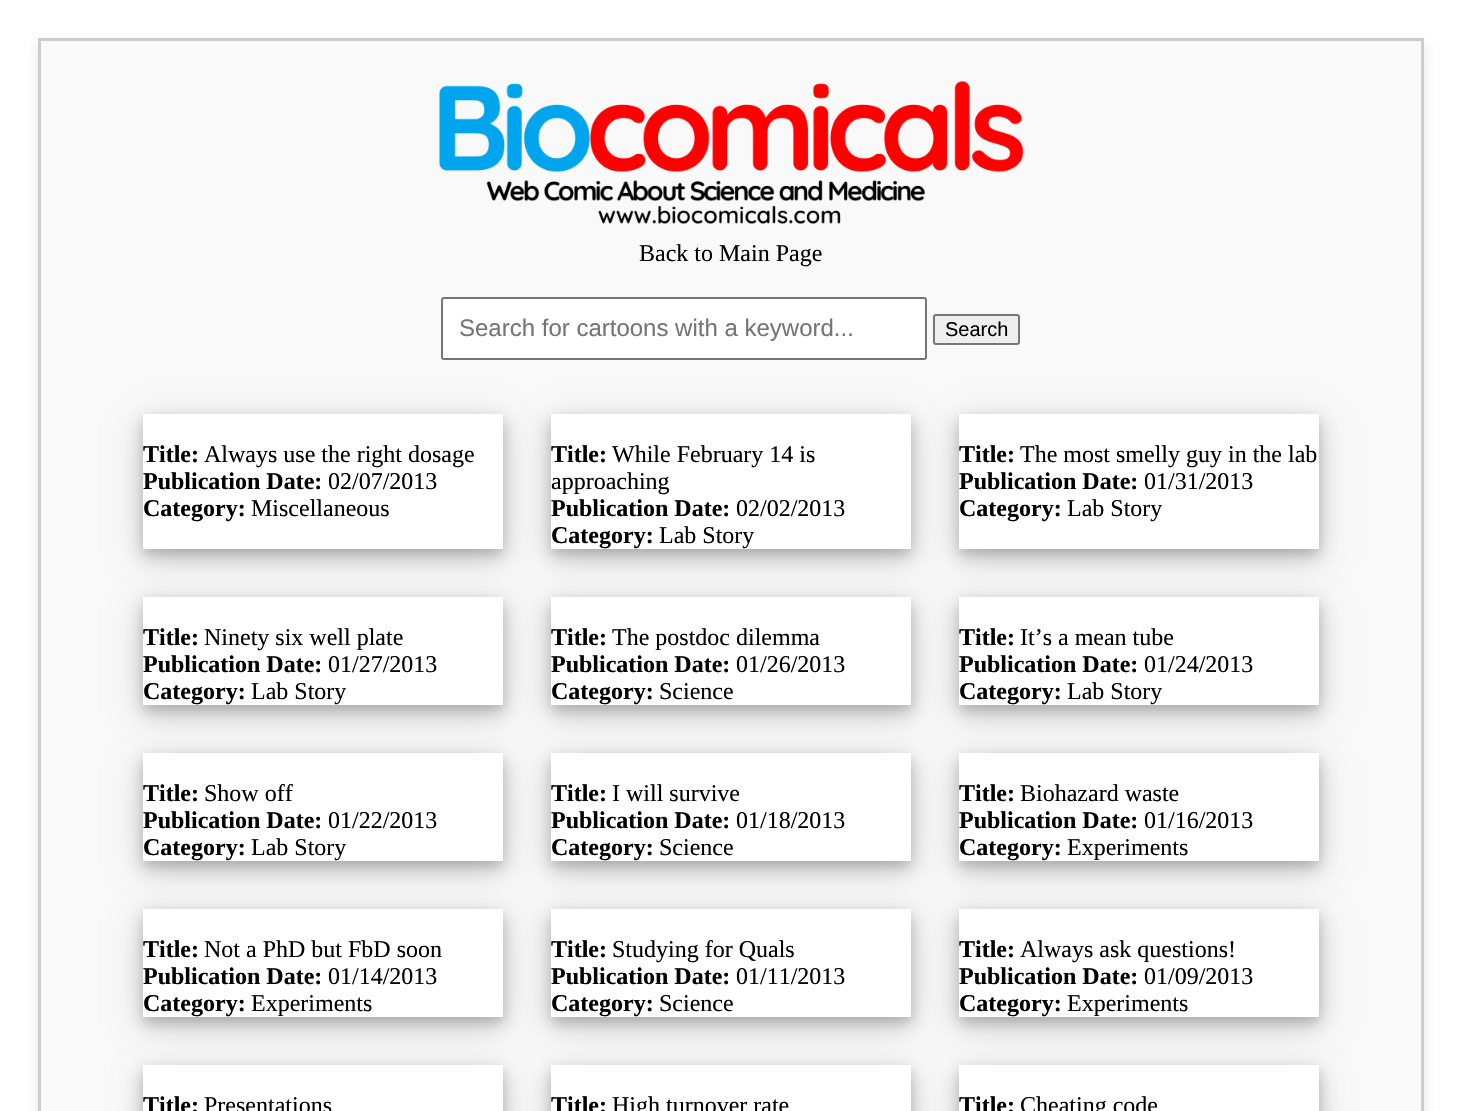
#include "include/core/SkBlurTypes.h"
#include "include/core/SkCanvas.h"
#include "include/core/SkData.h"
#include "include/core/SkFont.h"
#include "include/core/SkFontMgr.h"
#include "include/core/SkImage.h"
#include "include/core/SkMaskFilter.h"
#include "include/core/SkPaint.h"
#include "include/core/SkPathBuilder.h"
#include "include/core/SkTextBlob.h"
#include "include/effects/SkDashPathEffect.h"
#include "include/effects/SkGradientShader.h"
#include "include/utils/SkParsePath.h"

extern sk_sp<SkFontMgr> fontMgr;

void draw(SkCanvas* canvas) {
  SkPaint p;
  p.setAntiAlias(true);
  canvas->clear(SK_ColorWHITE);
  p.setColor(SkColorSetARGB(26, 0, 0, 0));
  p.setMaskFilter(SkMaskFilter::MakeBlur(kNormal_SkBlurStyle, 6));
  canvas->drawRect(SkRect::MakeLTRB(38, 44, 1424, 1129), p);
  p.setMaskFilter(nullptr);
  p.setColor(SkColorSetRGB(249, 249, 249));
  canvas->drawRect(SkRect::MakeLTRB(41, 42, 1421, 1111), p);
  p.setStyle(SkPaint::kStroke_Style);
  p.setStrokeWidth(3);
  p.setColor(SkColorSetRGB(204, 204, 204));
  canvas->drawRect(SkRect::MakeLTRB(39.5f, 39.5f, 1422.5f, 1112.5f), p);
  canvas->drawImageRect(SkImages::DeferredFromEncodedData(SkData::MakeFromFileName("images/1.png")), SkRect::MakeLTRB(439, 81, 1024, 224), SkSamplingOptions());
  p.setStyle(SkPaint::kFill_Style);
  p.setColor(SK_ColorWHITE);
  canvas->drawRoundRect(SkRect::MakeLTRB(442, 298, 926, 359), 2, 2, p);
  p.setStyle(SkPaint::kStroke_Style);
  p.setStrokeWidth(2);
  p.setColor(SkColorSetRGB(118, 118, 118));
  canvas->drawRoundRect(SkRect::MakeLTRB(442, 298, 926, 359), 2, 2, p);
  p.setStyle(SkPaint::kFill_Style);
  p.setColor(SkColorSetRGB(239, 239, 239));
  canvas->drawRoundRect(SkRect::MakeLTRB(934, 315, 1019, 344), 2, 2, p);
  p.setStyle(SkPaint::kStroke_Style);
  p.setColor(SkColorSetRGB(118, 118, 118));
  canvas->drawRoundRect(SkRect::MakeLTRB(934, 315, 1019, 344), 2, 2, p);
  p.setStyle(SkPaint::kFill_Style);
  p.setColor(SkColorSetARGB(48, 0, 0, 0));
  p.setMaskFilter(SkMaskFilter::MakeBlur(kNormal_SkBlurStyle, 15));
  canvas->drawRect(SkRect::MakeLTRB(143, 423, 503, 558), p);
  p.setMaskFilter(nullptr);
  p.setColor(SkColorSetARGB(51, 0, 0, 0));
  p.setMaskFilter(SkMaskFilter::MakeBlur(kNormal_SkBlurStyle, 6));
  canvas->drawRect(SkRect::MakeLTRB(143, 420, 503, 555), p);
  p.setMaskFilter(nullptr);
  p.setColor(SK_ColorWHITE);
  canvas->drawRect(SkRect::MakeLTRB(143, 414, 503, 549), p);
  p.setColor(SkColorSetARGB(48, 0, 0, 0));
  p.setMaskFilter(SkMaskFilter::MakeBlur(kNormal_SkBlurStyle, 15));
  canvas->drawRect(SkRect::MakeLTRB(551, 423, 911, 558), p);
  p.setMaskFilter(nullptr);
  p.setColor(SkColorSetARGB(51, 0, 0, 0));
  p.setMaskFilter(SkMaskFilter::MakeBlur(kNormal_SkBlurStyle, 6));
  canvas->drawRect(SkRect::MakeLTRB(551, 420, 911, 555), p);
  p.setMaskFilter(nullptr);
  p.setColor(SK_ColorWHITE);
  canvas->drawRect(SkRect::MakeLTRB(551, 414, 911, 549), p);
  p.setColor(SkColorSetARGB(48, 0, 0, 0));
  p.setMaskFilter(SkMaskFilter::MakeBlur(kNormal_SkBlurStyle, 15));
  canvas->drawRect(SkRect::MakeLTRB(959, 423, 1319, 558), p);
  p.setMaskFilter(nullptr);
  p.setColor(SkColorSetARGB(51, 0, 0, 0));
  p.setMaskFilter(SkMaskFilter::MakeBlur(kNormal_SkBlurStyle, 6));
  canvas->drawRect(SkRect::MakeLTRB(959, 420, 1319, 555), p);
  p.setMaskFilter(nullptr);
  p.setColor(SK_ColorWHITE);
  canvas->drawRect(SkRect::MakeLTRB(959, 414, 1319, 549), p);
  p.setColor(SkColorSetARGB(48, 0, 0, 0));
  p.setMaskFilter(SkMaskFilter::MakeBlur(kNormal_SkBlurStyle, 15));
  canvas->drawRect(SkRect::MakeLTRB(143, 606, 503, 714), p);
  p.setMaskFilter(nullptr);
  p.setColor(SkColorSetARGB(51, 0, 0, 0));
  p.setMaskFilter(SkMaskFilter::MakeBlur(kNormal_SkBlurStyle, 6));
  canvas->drawRect(SkRect::MakeLTRB(143, 603, 503, 711), p);
  p.setMaskFilter(nullptr);
  p.setColor(SK_ColorWHITE);
  canvas->drawRect(SkRect::MakeLTRB(143, 597, 503, 705), p);
  p.setColor(SkColorSetARGB(48, 0, 0, 0));
  p.setMaskFilter(SkMaskFilter::MakeBlur(kNormal_SkBlurStyle, 15));
  canvas->drawRect(SkRect::MakeLTRB(551, 606, 911, 714), p);
  p.setMaskFilter(nullptr);
  p.setColor(SkColorSetARGB(51, 0, 0, 0));
  p.setMaskFilter(SkMaskFilter::MakeBlur(kNormal_SkBlurStyle, 6));
  canvas->drawRect(SkRect::MakeLTRB(551, 603, 911, 711), p);
  p.setMaskFilter(nullptr);
  p.setColor(SK_ColorWHITE);
  canvas->drawRect(SkRect::MakeLTRB(551, 597, 911, 705), p);
  p.setColor(SkColorSetARGB(48, 0, 0, 0));
  p.setMaskFilter(SkMaskFilter::MakeBlur(kNormal_SkBlurStyle, 15));
  canvas->drawRect(SkRect::MakeLTRB(959, 606, 1319, 714), p);
  p.setMaskFilter(nullptr);
  p.setColor(SkColorSetARGB(51, 0, 0, 0));
  p.setMaskFilter(SkMaskFilter::MakeBlur(kNormal_SkBlurStyle, 6));
  canvas->drawRect(SkRect::MakeLTRB(959, 603, 1319, 711), p);
  p.setMaskFilter(nullptr);
  p.setColor(SK_ColorWHITE);
  canvas->drawRect(SkRect::MakeLTRB(959, 597, 1319, 705), p);
  p.setColor(SkColorSetARGB(48, 0, 0, 0));
  p.setMaskFilter(SkMaskFilter::MakeBlur(kNormal_SkBlurStyle, 15));
  canvas->drawRect(SkRect::MakeLTRB(143, 762, 503, 870), p);
  p.setMaskFilter(nullptr);
  p.setColor(SkColorSetARGB(51, 0, 0, 0));
  p.setMaskFilter(SkMaskFilter::MakeBlur(kNormal_SkBlurStyle, 6));
  canvas->drawRect(SkRect::MakeLTRB(143, 759, 503, 867), p);
  p.setMaskFilter(nullptr);
  p.setColor(SK_ColorWHITE);
  canvas->drawRect(SkRect::MakeLTRB(143, 753, 503, 861), p);
  p.setColor(SkColorSetARGB(48, 0, 0, 0));
  p.setMaskFilter(SkMaskFilter::MakeBlur(kNormal_SkBlurStyle, 15));
  canvas->drawRect(SkRect::MakeLTRB(551, 762, 911, 870), p);
  p.setMaskFilter(nullptr);
  p.setColor(SkColorSetARGB(51, 0, 0, 0));
  p.setMaskFilter(SkMaskFilter::MakeBlur(kNormal_SkBlurStyle, 6));
  canvas->drawRect(SkRect::MakeLTRB(551, 759, 911, 867), p);
  p.setMaskFilter(nullptr);
  p.setColor(SK_ColorWHITE);
  canvas->drawRect(SkRect::MakeLTRB(551, 753, 911, 861), p);
  p.setColor(SkColorSetARGB(48, 0, 0, 0));
  p.setMaskFilter(SkMaskFilter::MakeBlur(kNormal_SkBlurStyle, 15));
  canvas->drawRect(SkRect::MakeLTRB(959, 762, 1319, 870), p);
  p.setMaskFilter(nullptr);
  p.setColor(SkColorSetARGB(51, 0, 0, 0));
  p.setMaskFilter(SkMaskFilter::MakeBlur(kNormal_SkBlurStyle, 6));
  canvas->drawRect(SkRect::MakeLTRB(959, 759, 1319, 867), p);
  p.setMaskFilter(nullptr);
  p.setColor(SK_ColorWHITE);
  canvas->drawRect(SkRect::MakeLTRB(959, 753, 1319, 861), p);
  p.setColor(SkColorSetARGB(48, 0, 0, 0));
  p.setMaskFilter(SkMaskFilter::MakeBlur(kNormal_SkBlurStyle, 15));
  canvas->drawRect(SkRect::MakeLTRB(143, 918, 503, 1026), p);
  p.setMaskFilter(nullptr);
  p.setColor(SkColorSetARGB(51, 0, 0, 0));
  p.setMaskFilter(SkMaskFilter::MakeBlur(kNormal_SkBlurStyle, 6));
  canvas->drawRect(SkRect::MakeLTRB(143, 915, 503, 1023), p);
  p.setMaskFilter(nullptr);
  p.setColor(SK_ColorWHITE);
  canvas->drawRect(SkRect::MakeLTRB(143, 909, 503, 1017), p);
  p.setColor(SkColorSetARGB(48, 0, 0, 0));
  p.setMaskFilter(SkMaskFilter::MakeBlur(kNormal_SkBlurStyle, 15));
  canvas->drawRect(SkRect::MakeLTRB(551, 918, 911, 1026), p);
  p.setMaskFilter(nullptr);
  p.setColor(SkColorSetARGB(51, 0, 0, 0));
  p.setMaskFilter(SkMaskFilter::MakeBlur(kNormal_SkBlurStyle, 6));
  canvas->drawRect(SkRect::MakeLTRB(551, 915, 911, 1023), p);
  p.setMaskFilter(nullptr);
  p.setColor(SK_ColorWHITE);
  canvas->drawRect(SkRect::MakeLTRB(551, 909, 911, 1017), p);
  p.setColor(SkColorSetARGB(48, 0, 0, 0));
  p.setMaskFilter(SkMaskFilter::MakeBlur(kNormal_SkBlurStyle, 15));
  canvas->drawRect(SkRect::MakeLTRB(959, 918, 1319, 1026), p);
  p.setMaskFilter(nullptr);
  p.setColor(SkColorSetARGB(51, 0, 0, 0));
  p.setMaskFilter(SkMaskFilter::MakeBlur(kNormal_SkBlurStyle, 6));
  canvas->drawRect(SkRect::MakeLTRB(959, 915, 1319, 1023), p);
  p.setMaskFilter(nullptr);
  p.setColor(SK_ColorWHITE);
  canvas->drawRect(SkRect::MakeLTRB(959, 909, 1319, 1017), p);
  p.setColor(SkColorSetARGB(48, 0, 0, 0));
  p.setMaskFilter(SkMaskFilter::MakeBlur(kNormal_SkBlurStyle, 15));
  canvas->drawRect(SkRect::MakeLTRB(143, 1074, 503, 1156), p);
  p.setMaskFilter(nullptr);
  p.setColor(SkColorSetARGB(51, 0, 0, 0));
  p.setMaskFilter(SkMaskFilter::MakeBlur(kNormal_SkBlurStyle, 6));
  canvas->drawRect(SkRect::MakeLTRB(143, 1071, 503, 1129), p);
  p.setMaskFilter(nullptr);
  p.setColor(SK_ColorWHITE);
  canvas->drawRect(SkRect::MakeLTRB(143, 1065, 503, 1111), p);
  p.setColor(SkColorSetARGB(48, 0, 0, 0));
  p.setMaskFilter(SkMaskFilter::MakeBlur(kNormal_SkBlurStyle, 15));
  canvas->drawRect(SkRect::MakeLTRB(551, 1074, 911, 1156), p);
  p.setMaskFilter(nullptr);
  p.setColor(SkColorSetARGB(51, 0, 0, 0));
  p.setMaskFilter(SkMaskFilter::MakeBlur(kNormal_SkBlurStyle, 6));
  canvas->drawRect(SkRect::MakeLTRB(551, 1071, 911, 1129), p);
  p.setMaskFilter(nullptr);
  p.setColor(SK_ColorWHITE);
  canvas->drawRect(SkRect::MakeLTRB(551, 1065, 911, 1111), p);
  p.setColor(SkColorSetARGB(48, 0, 0, 0));
  p.setMaskFilter(SkMaskFilter::MakeBlur(kNormal_SkBlurStyle, 15));
  canvas->drawRect(SkRect::MakeLTRB(959, 1074, 1319, 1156), p);
  p.setMaskFilter(nullptr);
  p.setColor(SkColorSetARGB(51, 0, 0, 0));
  p.setMaskFilter(SkMaskFilter::MakeBlur(kNormal_SkBlurStyle, 6));
  canvas->drawRect(SkRect::MakeLTRB(959, 1071, 1319, 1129), p);
  p.setMaskFilter(nullptr);
  p.setColor(SK_ColorWHITE);
  canvas->drawRect(SkRect::MakeLTRB(959, 1065, 1319, 1111), p);
  SkFont font1(fontMgr->matchFamilyStyle("Liberation Serif", SkFontStyle::Normal()), 24);
  font1.setSubpixel(true);
  p.setColor(SK_ColorBLACK);
  canvas->drawString("Back to Main Page", 639, 261, font1, p);
  SkFont font2(fontMgr->matchFamilyStyle("Liberation Sans", SkFontStyle::Normal()), 24);
  font2.setSubpixel(true);
  p.setColor(SkColorSetRGB(117, 117, 117));
  canvas->drawString("Search for cartoons with a keyword...", 459, 336, font2, p);
  SkFont font3(fontMgr->matchFamilyStyle("Liberation Sans", SkFontStyle::Normal()), 20);
  font3.setSubpixel(true);
  p.setColor(SK_ColorBLACK);
  canvas->drawString("Search", 945, 336, font3, p);
  SkFont font4(fontMgr->matchFamilyStyle("Liberation Serif", SkFontStyle::Bold()), 24);
  font4.setSubpixel(true);
  canvas->drawString("Title:", 143, 462, font4, p);
  canvas->drawString("Always use the right dosage", 204, 462, font1, p);
  canvas->drawString("Publication Date:", 143, 489, font4, p);
  canvas->drawString("02/07/2013", 328, 489, font1, p);
  canvas->drawString("Category:", 143, 516, font4, p);
  canvas->drawString("Miscellaneous", 251, 516, font1, p);
  canvas->drawString("Title:", 551, 462, font4, p);
  canvas->drawString("While February 14 is", 612, 462, font1, p);
  canvas->drawString("approaching", 551, 489, font1, p);
  canvas->drawString("Publication Date:", 551, 516, font4, p);
  canvas->drawString("02/02/2013", 736, 516, font1, p);
  canvas->drawString("Category:", 551, 543, font4, p);
  canvas->drawString("Lab Story", 659, 543, font1, p);
  canvas->drawString("Title:", 959, 462, font4, p);
  canvas->drawString("The most smelly guy in the lab", 1020, 462, font1, p);
  canvas->drawString("Publication Date:", 959, 489, font4, p);
  canvas->drawString("01/31/2013", 1144, 489, font1, p);
  canvas->drawString("Category:", 959, 516, font4, p);
  canvas->drawString("Lab Story", 1067, 516, font1, p);
  canvas->drawString("Title:", 143, 645, font4, p);
  canvas->drawString("Ninety six well plate", 204, 645, font1, p);
  canvas->drawString("Publication Date:", 143, 672, font4, p);
  canvas->drawString("01/27/2013", 328, 672, font1, p);
  canvas->drawString("Category:", 143, 699, font4, p);
  canvas->drawString("Lab Story", 251, 699, font1, p);
  canvas->drawString("Title:", 551, 645, font4, p);
  canvas->drawString("The postdoc dilemma", 612, 645, font1, p);
  canvas->drawString("Publication Date:", 551, 672, font4, p);
  canvas->drawString("01/26/2013", 736, 672, font1, p);
  canvas->drawString("Category:", 551, 699, font4, p);
  canvas->drawString("Science", 659, 699, font1, p);
  canvas->drawString("Title:", 959, 645, font4, p);
  canvas->drawString("It’s a mean tube", 1020, 645, font1, p);
  canvas->drawString("Publication Date:", 959, 672, font4, p);
  canvas->drawString("01/24/2013", 1144, 672, font1, p);
  canvas->drawString("Category:", 959, 699, font4, p);
  canvas->drawString("Lab Story", 1067, 699, font1, p);
  canvas->drawString("Title:", 143, 801, font4, p);
  canvas->drawString("Show off", 204, 801, font1, p);
  canvas->drawString("Publication Date:", 143, 828, font4, p);
  canvas->drawString("01/22/2013", 328, 828, font1, p);
  canvas->drawString("Category:", 143, 855, font4, p);
  canvas->drawString("Lab Story", 251, 855, font1, p);
  canvas->drawString("Title:", 551, 801, font4, p);
  canvas->drawString("I will survive", 612, 801, font1, p);
  canvas->drawString("Publication Date:", 551, 828, font4, p);
  canvas->drawString("01/18/2013", 736, 828, font1, p);
  canvas->drawString("Category:", 551, 855, font4, p);
  canvas->drawString("Science", 659, 855, font1, p);
  canvas->drawString("Title:", 959, 801, font4, p);
  canvas->drawString("Biohazard waste", 1020, 801, font1, p);
  canvas->drawString("Publication Date:", 959, 828, font4, p);
  canvas->drawString("01/16/2013", 1144, 828, font1, p);
  canvas->drawString("Category:", 959, 855, font4, p);
  canvas->drawString("Experiments", 1067, 855, font1, p);
  canvas->drawString("Title:", 143, 957, font4, p);
  canvas->drawString("Not a PhD but FbD soon", 204, 957, font1, p);
  canvas->drawString("Publication Date:", 143, 984, font4, p);
  canvas->drawString("01/14/2013", 328, 984, font1, p);
  canvas->drawString("Category:", 143, 1011, font4, p);
  canvas->drawString("Experiments", 251, 1011, font1, p);
  canvas->drawString("Title:", 551, 957, font4, p);
  canvas->drawString("Studying for Quals", 612, 957, font1, p);
  canvas->drawString("Publication Date:", 551, 984, font4, p);
  canvas->drawString("01/11/2013", 736, 984, font1, p);
  canvas->drawString("Category:", 551, 1011, font4, p);
  canvas->drawString("Science", 659, 1011, font1, p);
  canvas->drawString("Title:", 959, 957, font4, p);
  canvas->drawString("Always ask questions!", 1020, 957, font1, p);
  canvas->drawString("Publication Date:", 959, 984, font4, p);
  canvas->drawString("01/09/2013", 1144, 984, font1, p);
  canvas->drawString("Category:", 959, 1011, font4, p);
  canvas->drawString("Experiments", 1067, 1011, font1, p);
  canvas->drawString("Title:", 143, 1113, font4, p);
  canvas->drawString("Presentations", 204, 1113, font1, p);
  canvas->drawString("Title:", 551, 1113, font4, p);
  canvas->drawString("High turnover rate", 612, 1113, font1, p);
  canvas->drawString("Title:", 959, 1113, font4, p);
  canvas->drawString("Cheating code", 1020, 1113, font1, p);
}
